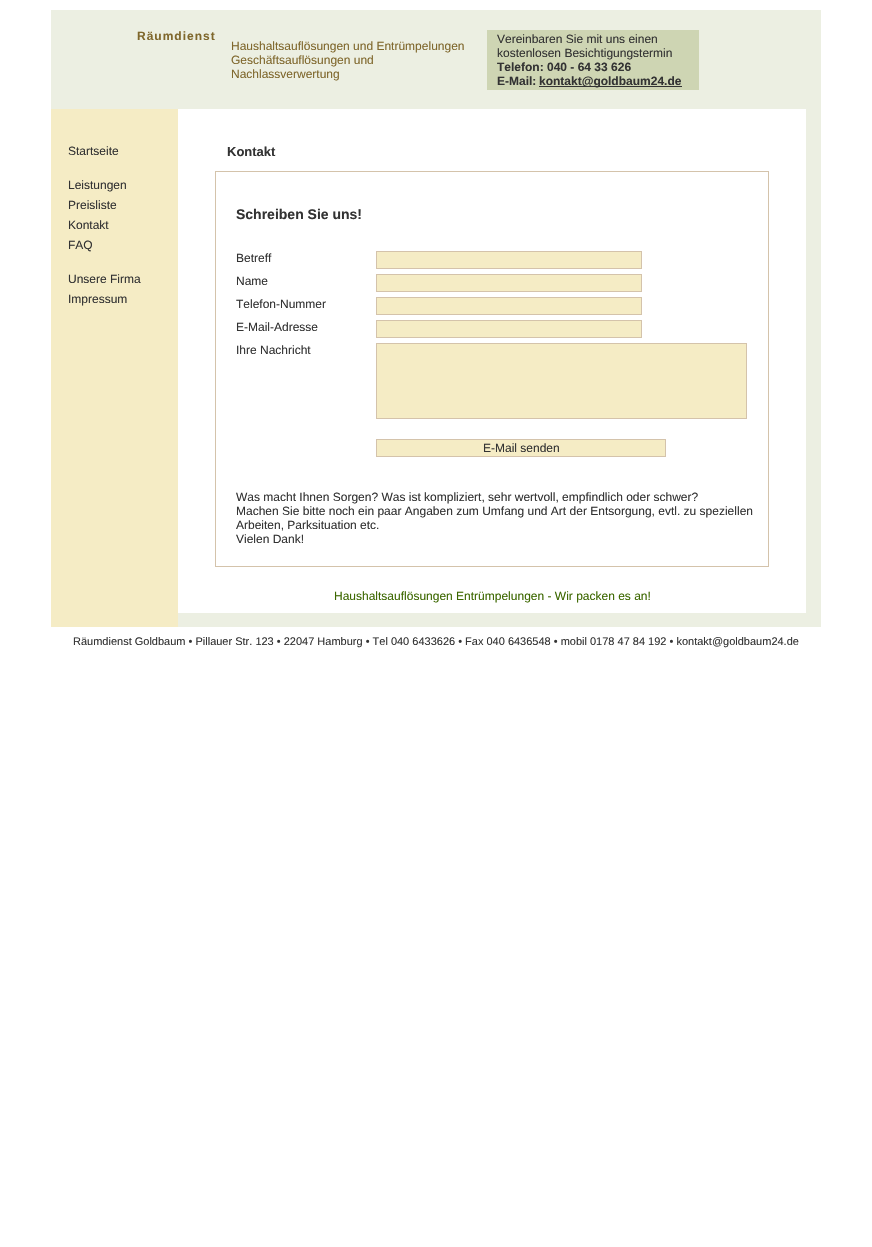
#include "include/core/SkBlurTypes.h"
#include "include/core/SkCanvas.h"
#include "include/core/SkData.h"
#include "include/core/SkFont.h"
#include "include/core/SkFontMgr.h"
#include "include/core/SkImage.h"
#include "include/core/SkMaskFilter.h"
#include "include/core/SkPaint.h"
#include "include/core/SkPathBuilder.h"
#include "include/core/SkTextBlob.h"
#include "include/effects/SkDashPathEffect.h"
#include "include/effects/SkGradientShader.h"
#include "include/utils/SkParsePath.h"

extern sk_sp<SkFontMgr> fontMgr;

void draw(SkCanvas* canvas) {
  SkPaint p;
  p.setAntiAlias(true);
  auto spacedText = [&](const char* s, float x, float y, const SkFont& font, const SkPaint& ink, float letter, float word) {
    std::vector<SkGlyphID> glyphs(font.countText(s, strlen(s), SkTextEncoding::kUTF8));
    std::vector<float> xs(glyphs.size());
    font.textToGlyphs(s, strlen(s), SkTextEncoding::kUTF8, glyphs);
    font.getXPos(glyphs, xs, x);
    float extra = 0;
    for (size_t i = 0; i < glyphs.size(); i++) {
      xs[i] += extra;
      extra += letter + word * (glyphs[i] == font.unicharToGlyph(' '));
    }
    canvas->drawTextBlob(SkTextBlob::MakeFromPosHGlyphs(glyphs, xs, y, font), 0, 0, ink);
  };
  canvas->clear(SK_ColorWHITE);
  p.setColor(SkColorSetRGB(236, 239, 226));
  canvas->drawRect(SkRect::MakeLTRB(51, 10, 821, 109), p);
  p.setColor(SkColorSetRGB(206, 213, 179));
  canvas->drawRect(SkRect::MakeLTRB(487, 30, 699, 90), p);
  p.setColor(SkColorSetRGB(51, 51, 51));
  canvas->drawRect(SkRect::MakeLTRB(539, 86, 682, 87), p);
  p.setColor(SkColorSetRGB(245, 236, 197));
  canvas->drawRect(SkRect::MakeLTRB(51, 109, 178, 627), p);
  p.setStyle(SkPaint::kStroke_Style);
  p.setStrokeWidth(1);
  p.setColor(SkColorSetRGB(212, 195, 171));
  canvas->drawRect(SkRect::MakeLTRB(215.5f, 171.5f, 768.5f, 566.5f), p);
  p.setStyle(SkPaint::kFill_Style);
  p.setColor(SkColorSetRGB(245, 236, 197));
  canvas->drawRect(SkRect::MakeLTRB(376.5f, 251.5f, 641.5f, 268.5f), p);
  p.setStyle(SkPaint::kStroke_Style);
  p.setColor(SkColorSetRGB(212, 195, 171));
  canvas->drawRect(SkRect::MakeLTRB(376.5f, 251.5f, 641.5f, 268.5f), p);
  p.setStyle(SkPaint::kFill_Style);
  p.setColor(SkColorSetRGB(245, 236, 197));
  canvas->drawRect(SkRect::MakeLTRB(376.5f, 274.5f, 641.5f, 291.5f), p);
  p.setStyle(SkPaint::kStroke_Style);
  p.setColor(SkColorSetRGB(212, 195, 171));
  canvas->drawRect(SkRect::MakeLTRB(376.5f, 274.5f, 641.5f, 291.5f), p);
  p.setStyle(SkPaint::kFill_Style);
  p.setColor(SkColorSetRGB(245, 236, 197));
  canvas->drawRect(SkRect::MakeLTRB(376.5f, 297.5f, 641.5f, 314.5f), p);
  p.setStyle(SkPaint::kStroke_Style);
  p.setColor(SkColorSetRGB(212, 195, 171));
  canvas->drawRect(SkRect::MakeLTRB(376.5f, 297.5f, 641.5f, 314.5f), p);
  p.setStyle(SkPaint::kFill_Style);
  p.setColor(SkColorSetRGB(245, 236, 197));
  canvas->drawRect(SkRect::MakeLTRB(376.5f, 320.5f, 641.5f, 337.5f), p);
  p.setStyle(SkPaint::kStroke_Style);
  p.setColor(SkColorSetRGB(212, 195, 171));
  canvas->drawRect(SkRect::MakeLTRB(376.5f, 320.5f, 641.5f, 337.5f), p);
  p.setStyle(SkPaint::kFill_Style);
  p.setColor(SkColorSetRGB(245, 236, 197));
  canvas->drawRect(SkRect::MakeLTRB(376.5f, 343.5f, 746.5f, 418.5f), p);
  p.setStyle(SkPaint::kStroke_Style);
  p.setColor(SkColorSetRGB(212, 195, 171));
  canvas->drawRect(SkRect::MakeLTRB(376.5f, 343.5f, 746.5f, 418.5f), p);
  p.setStyle(SkPaint::kFill_Style);
  p.setColor(SkColorSetRGB(245, 236, 197));
  canvas->drawRect(SkRect::MakeLTRB(376.5f, 439.5f, 665.5f, 456.5f), p);
  p.setStyle(SkPaint::kStroke_Style);
  p.setColor(SkColorSetRGB(212, 195, 171));
  canvas->drawRect(SkRect::MakeLTRB(376.5f, 439.5f, 665.5f, 456.5f), p);
  p.setStyle(SkPaint::kFill_Style);
  p.setColor(SkColorSetRGB(236, 239, 226));
  canvas->drawRect(SkRect::MakeLTRB(806, 109, 821, 613), p);
  canvas->drawRect(SkRect::MakeLTRB(178, 613, 821, 627), p);
  SkFont font1(fontMgr->matchFamilyStyle("Liberation Sans", SkFontStyle::Bold()), 12);
  font1.setSubpixel(true);
  p.setColor(SkColorSetRGB(127, 103, 44));
  spacedText("Räumdienst", 137, 40, font1, p, 1, 0);
  SkFont font2(fontMgr->matchFamilyStyle("Liberation Sans", SkFontStyle::Normal()), 12);
  font2.setSubpixel(true);
  canvas->drawString("Haushaltsauflösungen und Entrümpelungen", 231, 50, font2, p);
  canvas->drawString("Geschäftsauflösungen und", 231, 64, font2, p);
  canvas->drawString("Nachlassverwertung", 231, 78, font2, p);
  p.setColor(SkColorSetRGB(51, 51, 51));
  canvas->drawString("Vereinbaren Sie mit uns einen", 497, 43, font2, p);
  canvas->drawString("kostenlosen Besichtigungstermin", 497, 57, font2, p);
  canvas->drawString("Telefon: 040 - 64 33 626", 497, 71, font1, p);
  canvas->drawString("E-Mail:", 497, 85, font1, p);
  canvas->drawString("kontakt@goldbaum24.de", 539, 85, font1, p);
  canvas->drawString("Startseite", 68, 155, font2, p);
  canvas->drawString("Leistungen", 68, 189, font2, p);
  canvas->drawString("Preisliste", 68, 209, font2, p);
  canvas->drawString("Kontakt", 68, 229, font2, p);
  canvas->drawString("FAQ", 68, 249, font2, p);
  canvas->drawString("Unsere Firma", 68, 283, font2, p);
  canvas->drawString("Impressum", 68, 303, font2, p);
  SkFont font3(fontMgr->matchFamilyStyle("Liberation Sans", SkFontStyle::Bold()), 13);
  font3.setSubpixel(true);
  canvas->drawString("Kontakt", 227, 156, font3, p);
  SkFont font4(fontMgr->matchFamilyStyle("Liberation Sans", SkFontStyle::Bold()), 14);
  font4.setSubpixel(true);
  canvas->drawString("Schreiben Sie uns!", 236, 219, font4, p);
  canvas->drawString("Betreff", 236, 262, font2, p);
  canvas->drawString("Name", 236, 285, font2, p);
  canvas->drawString("Telefon-Nummer", 236, 308, font2, p);
  canvas->drawString("E-Mail-Adresse", 236, 331, font2, p);
  canvas->drawString("Ihre Nachricht", 236, 354, font2, p);
  canvas->drawString("E-Mail senden", 483, 452, font2, p);
  canvas->drawString("Was macht Ihnen Sorgen? Was ist kompliziert, sehr wertvoll, empfindlich oder schwer?", 236, 501, font2, p);
  canvas->drawString("Machen Sie bitte noch ein paar Angaben zum Umfang und Art der Entsorgung, evtl. zu speziellen", 236, 515, font2, p);
  canvas->drawString("Arbeiten, Parksituation etc.", 236, 529, font2, p);
  canvas->drawString("Vielen Dank!", 236, 543, font2, p);
  p.setColor(SkColorSetRGB(60, 103, 0));
  canvas->drawString("Haushaltsauflösungen Entrümpelungen - Wir packen es an!", 334, 600, font2, p);
  SkFont font5(fontMgr->matchFamilyStyle("Liberation Sans", SkFontStyle::Normal()), 11);
  font5.setSubpixel(true);
  p.setColor(SkColorSetRGB(51, 51, 51));
  canvas->drawString("Räumdienst Goldbaum • Pillauer Str. 123 • 22047 Hamburg • Tel 040 6433626 • Fax 040 6436548 • mobil 0178 47 84 192 • kontakt@goldbaum24.de", 73, 645, font5, p);
}
